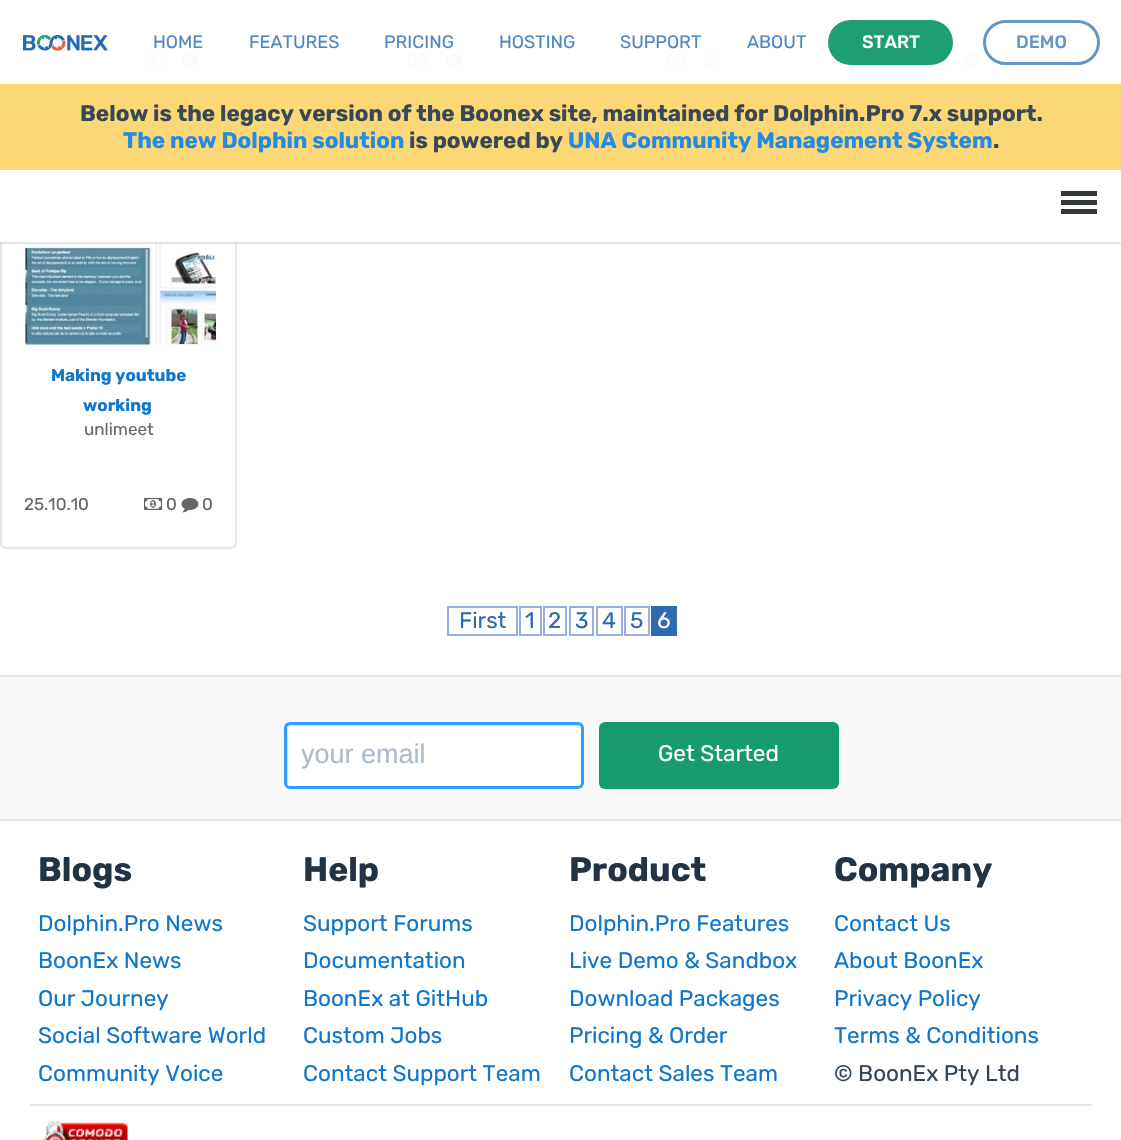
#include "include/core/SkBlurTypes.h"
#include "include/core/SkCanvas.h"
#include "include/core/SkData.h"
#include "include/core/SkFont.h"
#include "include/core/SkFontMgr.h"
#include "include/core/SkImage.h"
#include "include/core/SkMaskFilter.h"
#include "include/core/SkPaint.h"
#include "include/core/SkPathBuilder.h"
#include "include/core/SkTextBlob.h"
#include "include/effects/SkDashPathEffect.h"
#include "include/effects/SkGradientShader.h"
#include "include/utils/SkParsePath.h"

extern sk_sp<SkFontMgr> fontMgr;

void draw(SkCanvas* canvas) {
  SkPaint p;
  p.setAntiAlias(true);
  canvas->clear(SK_ColorWHITE);
  p.setStyle(SkPaint::kStroke_Style);
  p.setStrokeWidth(2);
  p.setColor(SkColorSetRGB(232, 232, 232));
  canvas->drawRoundRect(SkRect::MakeLTRB(1, -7, 236, 104), 5, 5, p);
  canvas->drawImageRect(SkImages::DeferredFromEncodedData(SkData::MakeFromFileName("images/2.png")), SkRect::MakeLTRB(145, 53, 164, 66), SkSamplingOptions());
  canvas->drawImageRect(SkImages::DeferredFromEncodedData(SkData::MakeFromFileName("images/3.png")), SkRect::MakeLTRB(181, 54, 199, 69), SkSamplingOptions());
  canvas->drawRoundRect(SkRect::MakeLTRB(262, -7, 497, 104), 5, 5, p);
  canvas->drawImageRect(SkImages::DeferredFromEncodedData(SkData::MakeFromFileName("images/4.png")), SkRect::MakeLTRB(408, 53, 427, 66), SkSamplingOptions());
  canvas->drawImageRect(SkImages::DeferredFromEncodedData(SkData::MakeFromFileName("images/3.png")), SkRect::MakeLTRB(445, 54, 463, 69), SkSamplingOptions());
  canvas->drawRoundRect(SkRect::MakeLTRB(523, -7, 758, 104), 5, 5, p);
  canvas->drawImageRect(SkImages::DeferredFromEncodedData(SkData::MakeFromFileName("images/2.png")), SkRect::MakeLTRB(667, 53, 686, 66), SkSamplingOptions());
  canvas->drawImageRect(SkImages::DeferredFromEncodedData(SkData::MakeFromFileName("images/3.png")), SkRect::MakeLTRB(703, 54, 721, 69), SkSamplingOptions());
  canvas->drawRoundRect(SkRect::MakeLTRB(784, -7, 1019, 104), 5, 5, p);
  canvas->drawImageRect(SkImages::DeferredFromEncodedData(SkData::MakeFromFileName("images/5.png")), SkRect::MakeLTRB(928, 57, 947, 66), SkSamplingOptions());
  canvas->drawImageRect(SkImages::DeferredFromEncodedData(SkData::MakeFromFileName("images/3.png")), SkRect::MakeLTRB(964, 54, 982, 69), SkSamplingOptions());
  canvas->drawRoundRect(SkRect::MakeLTRB(1, 130, 236, 548), 5, 5, p);
  canvas->drawImageRect(SkImages::DeferredFromEncodedData(SkData::MakeFromFileName("images/6.png")), SkRect::MakeLTRB(25, 154, 216, 345), SkSamplingOptions());
  p.setStyle(SkPaint::kFill_Style);
  p.setColor(SkColorSetARGB(247, 255, 255, 255));
  canvas->drawRect(SkRect::MakeLTRB(0, 0, 1020, 243), p);
  p.setColor(SkColorSetARGB(26, 0, 0, 0));
  canvas->drawRect(SkRect::MakeLTRB(0, 242, 1121, 244), p);
  canvas->drawImageRect(SkImages::DeferredFromEncodedData(SkData::MakeFromFileName("images/1.png")), SkRect::MakeLTRB(23, 35, 108, 51), SkSamplingOptions());
  p.setColor(SkColorSetRGB(30, 158, 117));
  canvas->drawRoundRect(SkRect::MakeLTRB(828, 20, 953, 65), 22.5f, 22.5f, p);
  p.setStyle(SkPaint::kStroke_Style);
  p.setStrokeWidth(3);
  p.setColor(SkColorSetRGB(101, 150, 199));
  canvas->drawRoundRect(SkRect::MakeLTRB(984.5f, 21.5f, 1098.5f, 63.5f), 21, 21, p);
  p.setStyle(SkPaint::kFill_Style);
  p.setColor(SkColorSetARGB(247, 252, 214, 113));
  canvas->drawRect(SkRect::MakeLTRB(0, 84, 1121, 170), p);
  p.setColor(SkColorSetARGB(247, 255, 255, 255));
  canvas->drawRect(SkRect::MakeLTRB(25, 170, 216, 236), p);
  p.setColor(SkColorSetRGB(52, 56, 57));
  canvas->drawRect(SkRect::MakeLTRB(1061, 200, 1097, 205), p);
  canvas->drawRect(SkRect::MakeLTRB(1061, 191, 1097, 196), p);
  canvas->drawRect(SkRect::MakeLTRB(1061, 209, 1097, 214), p);
  canvas->drawImageRect(SkImages::DeferredFromEncodedData(SkData::MakeFromFileName("images/4.png")), SkRect::MakeLTRB(144, 497, 163, 510), SkSamplingOptions());
  canvas->drawImageRect(SkImages::DeferredFromEncodedData(SkData::MakeFromFileName("images/3.png")), SkRect::MakeLTRB(181, 498, 199, 513), SkSamplingOptions());
  p.setStyle(SkPaint::kStroke_Style);
  p.setStrokeWidth(2);
  p.setColor(SkColorSetRGB(154, 175, 229));
  canvas->drawRect(SkRect::MakeLTRB(448, 607, 517, 635), p);
  canvas->drawRect(SkRect::MakeLTRB(520, 607, 541, 635), p);
  canvas->drawRect(SkRect::MakeLTRB(544, 607, 566, 635), p);
  canvas->drawRect(SkRect::MakeLTRB(570, 607, 593, 635), p);
  canvas->drawRect(SkRect::MakeLTRB(597, 607, 622, 635), p);
  canvas->drawRect(SkRect::MakeLTRB(625, 607, 649, 635), p);
  p.setStyle(SkPaint::kFill_Style);
  p.setColor(SkColorSetRGB(46, 106, 177));
  canvas->drawRect(SkRect::MakeLTRB(651, 606, 677, 636), p);
  p.setColor(SkColorSetRGB(232, 232, 232));
  canvas->drawRect(SkRect::MakeLTRB(0, 675, 1121, 677), p);
  p.setColor(SkColorSetRGB(249, 249, 249));
  canvas->drawRect(SkRect::MakeLTRB(0, 677, 1121, 819), p);
  p.setColor(SkColorSetRGB(232, 232, 232));
  canvas->drawRect(SkRect::MakeLTRB(0, 819, 1121, 821), p);
  p.setColor(SK_ColorWHITE);
  canvas->drawRoundRect(SkRect::MakeLTRB(284, 722, 584, 789), 6, 6, p);
  p.setColor(SkColorSetRGB(221, 221, 221));
  canvas->drawPath(SkPathBuilder().moveTo(291, 726).lineTo(580, 726).cubicTo(580, 725, 579, 725, 578, 725).lineTo(290, 725).cubicTo(288, 725, 287, 726, 287, 728).lineTo(287, 783).cubicTo(287, 784, 287, 785, 288, 785).lineTo(288, 738).cubicTo(288, 736, 286, 726, 291, 726).close().detach(), p);
  p.setStyle(SkPaint::kStroke_Style);
  p.setStrokeWidth(3);
  p.setColor(SkColorSetRGB(51, 154, 255));
  canvas->drawRoundRect(SkRect::MakeLTRB(285.5f, 723.5f, 582.5f, 787.5f), 4.5f, 4.5f, p);
  p.setStyle(SkPaint::kFill_Style);
  p.setColor(SkColorSetRGB(23, 155, 113));
  canvas->drawRoundRect(SkRect::MakeLTRB(599, 722, 839, 789), 6, 6, p);
  p.setColor(SkColorSetRGB(228, 228, 228));
  canvas->drawRect(SkRect::MakeLTRB(30, 1104, 1092, 1106), p);
  canvas->drawImageRect(SkImages::DeferredFromEncodedData(SkData::MakeFromFileName("images/7.png")), SkRect::MakeLTRB(43, 1121, 128, 1140), SkSamplingOptions());
  SkFont font1(fontMgr->matchFamilyStyle("Rubik", SkFontStyle::Normal()), 18);
  font1.setSubpixel(true);
  p.setColor(SkColorSetRGB(79, 136, 191));
  canvas->drawString("HOME", 153, 48, font1, p);
  canvas->drawString("FEATURES", 249, 48, font1, p);
  canvas->drawString("PRICING", 384, 48, font1, p);
  canvas->drawString("HOSTING", 499, 48, font1, p);
  canvas->drawString("SUPPORT", 620, 48, font1, p);
  canvas->drawString("ABOUT", 747, 48, font1, p);
  SkFont font2(fontMgr->matchFamilyStyle("Rubik", SkFontStyle(500, SkFontStyle::kNormal_Width, SkFontStyle::kUpright_Slant)), 18);
  font2.setSubpixel(true);
  p.setColor(SK_ColorWHITE);
  canvas->drawString("START", 862, 48, font2, p);
  p.setColor(SkColorSetRGB(101, 150, 199));
  canvas->drawString("DEMO", 1016, 48, font2, p);
  SkFont font3(fontMgr->matchFamilyStyle("Rubik", SkFontStyle::Bold()), 22.5f);
  font3.setSubpixel(true);
  p.setColor(SkColorSetRGB(57, 72, 86));
  canvas->drawString("Below is the legacy version of the Boonex site, maintained for Dolphin.Pro 7.x support.", 80, 121, font3, p);
  p.setColor(SkColorSetRGB(37, 138, 226));
  canvas->drawString("The new Dolphin solution", 123, 148, font3, p);
  p.setColor(SkColorSetRGB(57, 72, 86));
  canvas->drawString("is powered by", 409, 148, font3, p);
  p.setColor(SkColorSetRGB(37, 138, 226));
  canvas->drawString("UNA Community Management System", 568, 148, font3, p);
  p.setColor(SkColorSetRGB(57, 72, 86));
  canvas->drawString(".", 993, 148, font3, p);
  SkFont font4(fontMgr->matchFamilyStyle("Rubik", SkFontStyle::Bold()), 17);
  font4.setSubpixel(true);
  p.setColor(SkColorSetRGB(17, 119, 204));
  canvas->drawString("Making youtube", 51, 381, font4, p);
  canvas->drawString("working", 83, 411, font4, p);
  SkFont font5(fontMgr->matchFamilyStyle("Rubik", SkFontStyle::Normal()), 17);
  font5.setSubpixel(true);
  p.setColor(SkColorSetRGB(102, 102, 102));
  canvas->drawString("unlimeet", 84, 435, font5, p);
  canvas->drawString("25.10.10", 24, 510, font5, p);
  canvas->drawString("0", 166, 510, font5, p);
  canvas->drawString("0", 202, 510, font5, p);
  SkFont font6(fontMgr->matchFamilyStyle("Rubik", SkFontStyle::Normal()), 22.5f);
  font6.setSubpixel(true);
  p.setColor(SkColorSetRGB(46, 106, 177));
  canvas->drawString("First", 459, 628, font6, p);
  canvas->drawString("1", 525, 628, font6, p);
  canvas->drawString("2", 548, 628, font6, p);
  canvas->drawString("3", 575, 628, font6, p);
  canvas->drawString("4", 602, 628, font6, p);
  canvas->drawString("5", 630, 628, font6, p);
  p.setColor(SK_ColorWHITE);
  canvas->drawString("6", 657, 628, font6, p);
  canvas->save();
  canvas->clipRect(SkRect::MakeLTRB(302, 740, 566, 771));
  SkFont font7(fontMgr->matchFamilyStyle("Liberation Sans", SkFontStyle::Normal()), 27);
  font7.setSubpixel(true);
  p.setColor(SkColorSetRGB(170, 187, 204));
  canvas->drawString("your email", 301, 763, font7, p);
  canvas->restore();
  p.setColor(SK_ColorWHITE);
  canvas->drawString("Get Started", 658, 761, font6, p);
  SkFont font8(fontMgr->matchFamilyStyle("Rubik", SkFontStyle::Bold()), 33.75f);
  font8.setSubpixel(true);
  p.setColor(SkColorSetRGB(34, 51, 68));
  canvas->drawString("Blogs", 38, 881, font8, p);
  p.setColor(SkColorSetRGB(17, 119, 204));
  canvas->drawString("Dolphin.Pro News", 38, 931, font6, p);
  canvas->drawString("BoonEx News", 38, 968, font6, p);
  canvas->drawString("Our Journey", 38, 1006, font6, p);
  canvas->drawString("Social Software World", 38, 1043, font6, p);
  canvas->drawString("Community Voice", 38, 1081, font6, p);
  p.setColor(SkColorSetRGB(34, 51, 68));
  canvas->drawString("Help", 303, 881, font8, p);
  p.setColor(SkColorSetRGB(17, 119, 204));
  canvas->drawString("Support Forums", 303, 931, font6, p);
  canvas->drawString("Documentation", 303, 968, font6, p);
  canvas->drawString("BoonEx at GitHub", 303, 1006, font6, p);
  canvas->drawString("Custom Jobs", 303, 1043, font6, p);
  canvas->drawString("Contact Support Team", 303, 1081, font6, p);
  p.setColor(SkColorSetRGB(34, 51, 68));
  canvas->drawString("Product", 569, 881, font8, p);
  p.setColor(SkColorSetRGB(17, 119, 204));
  canvas->drawString("Dolphin.Pro Features", 569, 931, font6, p);
  canvas->drawString("Live Demo & Sandbox", 569, 968, font6, p);
  canvas->drawString("Download Packages", 569, 1006, font6, p);
  canvas->drawString("Pricing & Order", 569, 1043, font6, p);
  canvas->drawString("Contact Sales Team", 569, 1081, font6, p);
  p.setColor(SkColorSetRGB(34, 51, 68));
  canvas->drawString("Company", 834, 881, font8, p);
  p.setColor(SkColorSetRGB(17, 119, 204));
  canvas->drawString("Contact Us", 834, 931, font6, p);
  canvas->drawString("About BoonEx", 834, 968, font6, p);
  canvas->drawString("Privacy Policy", 834, 1006, font6, p);
  canvas->drawString("Terms & Conditions", 834, 1043, font6, p);
  p.setColor(SkColorSetRGB(51, 68, 85));
  canvas->drawString("© BoonEx Pty Ltd", 834, 1081, font6, p);
}
